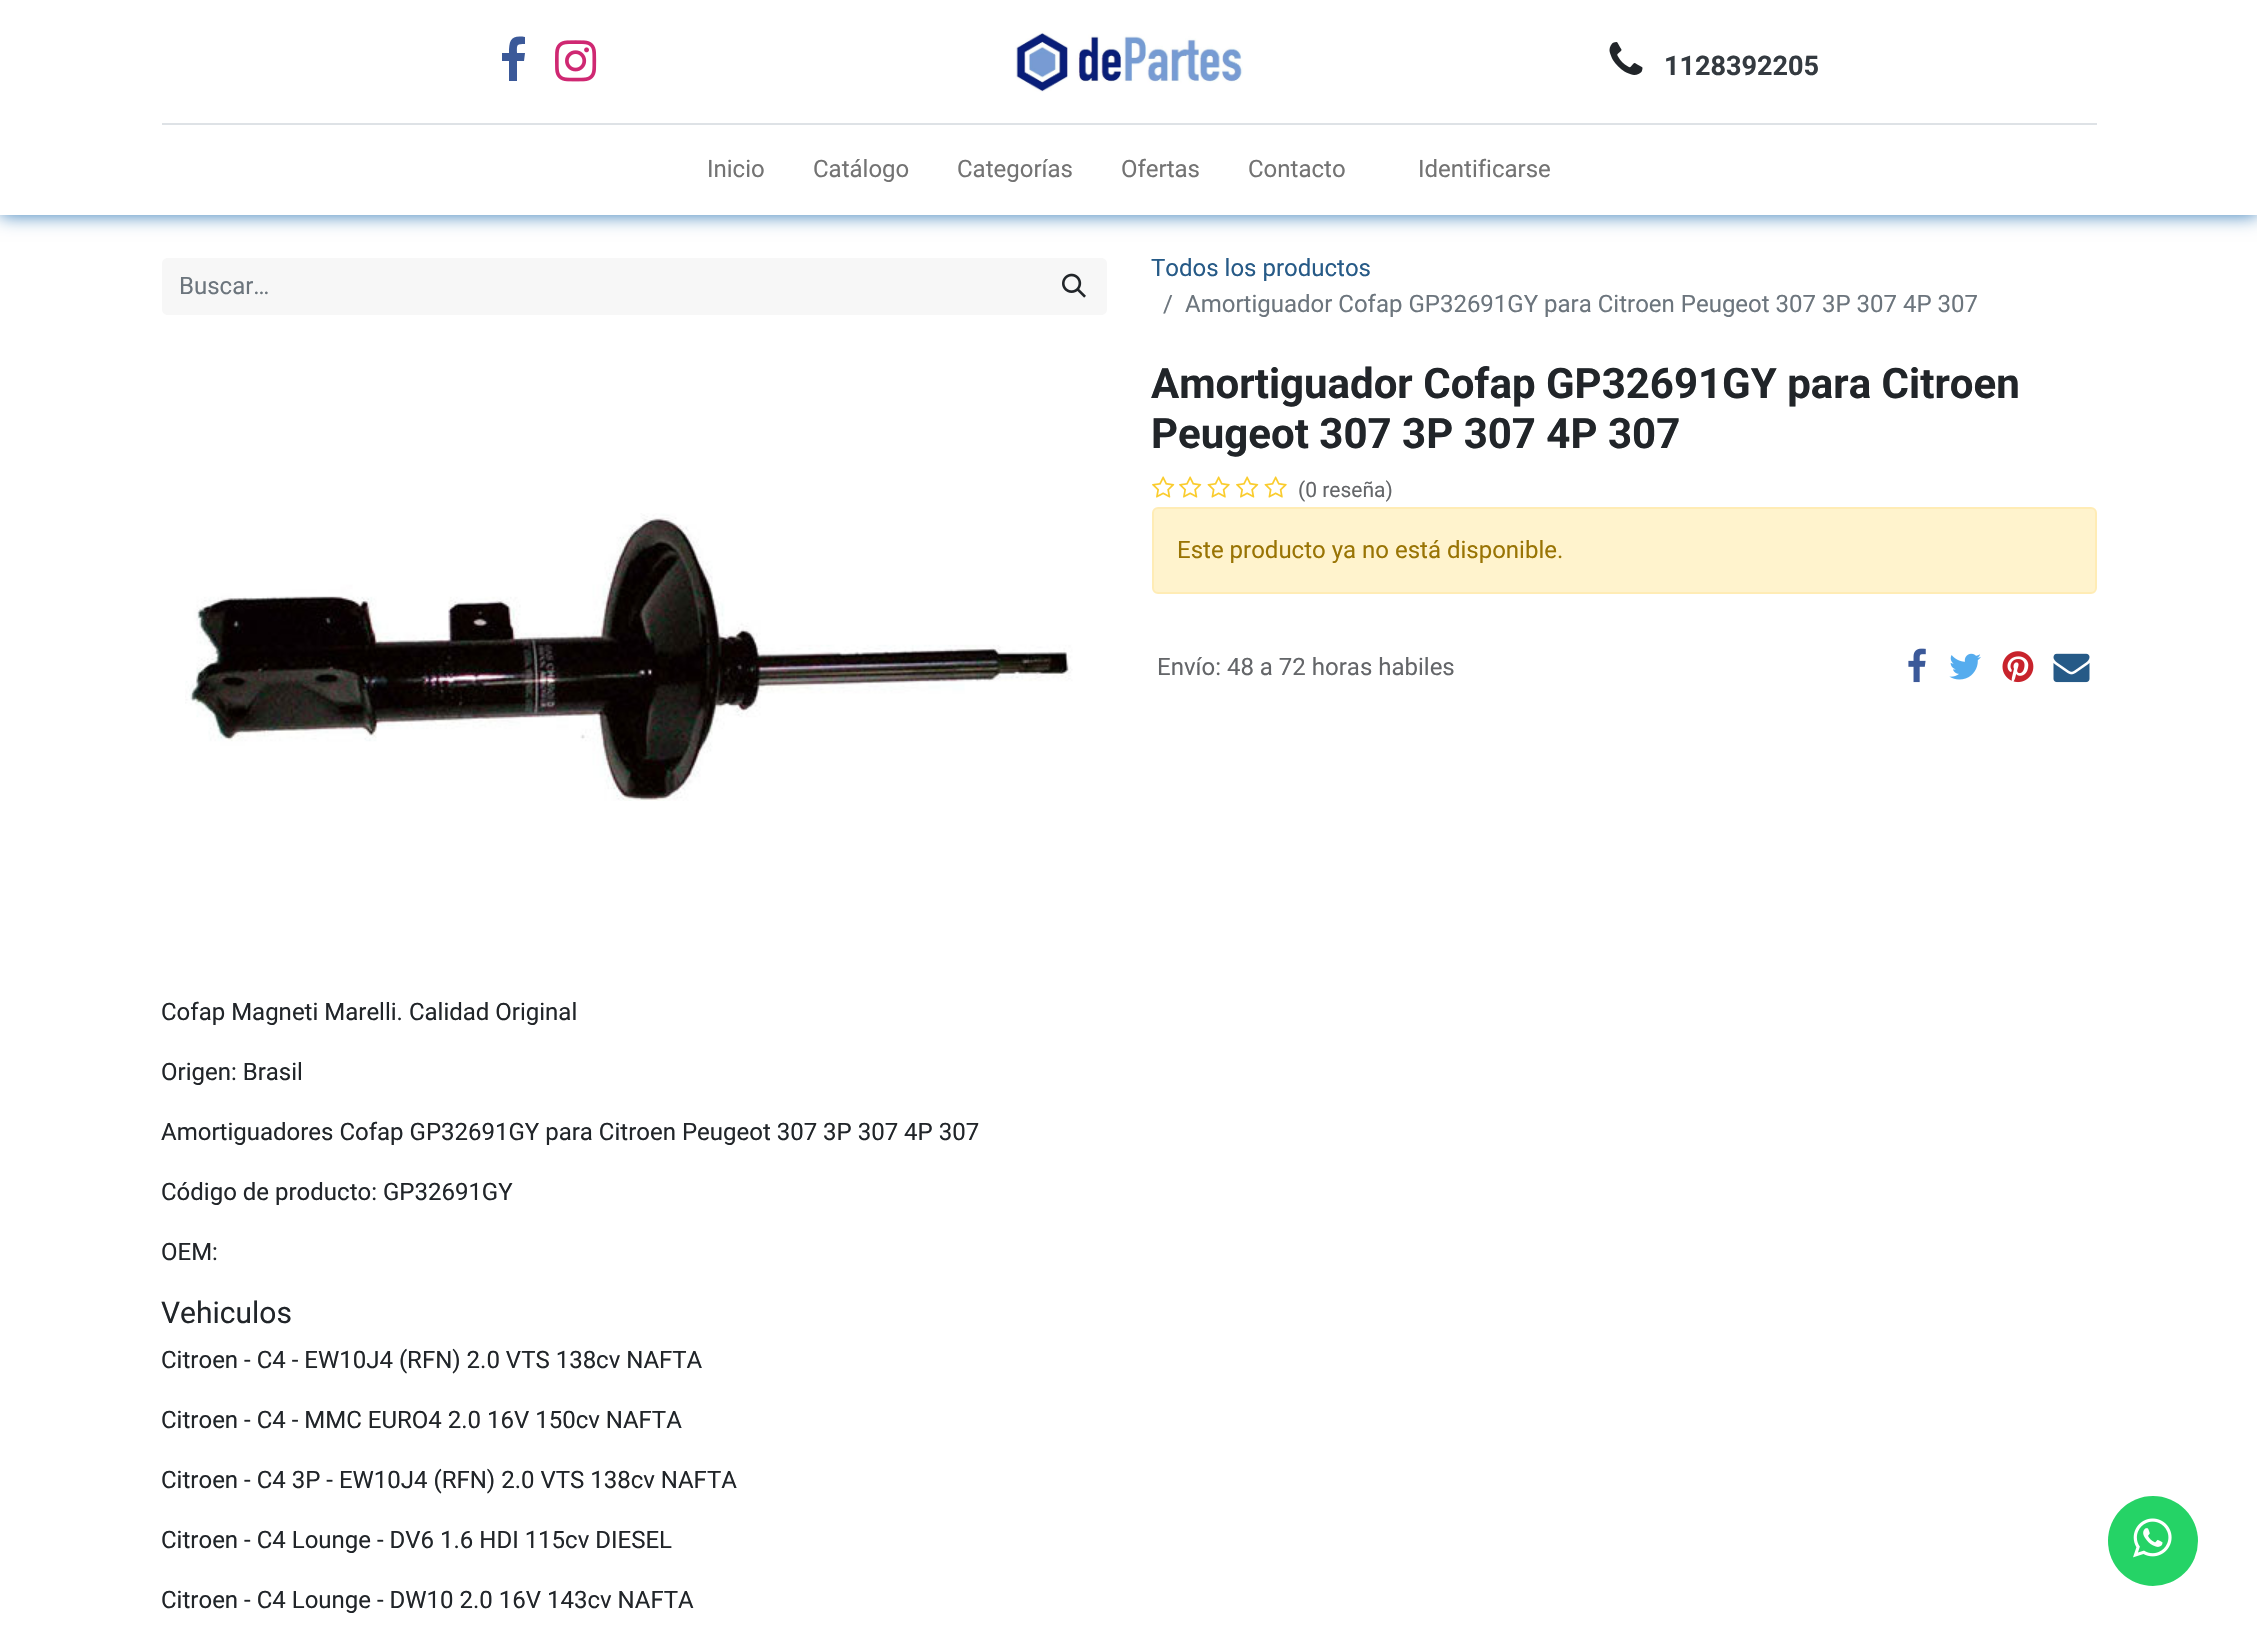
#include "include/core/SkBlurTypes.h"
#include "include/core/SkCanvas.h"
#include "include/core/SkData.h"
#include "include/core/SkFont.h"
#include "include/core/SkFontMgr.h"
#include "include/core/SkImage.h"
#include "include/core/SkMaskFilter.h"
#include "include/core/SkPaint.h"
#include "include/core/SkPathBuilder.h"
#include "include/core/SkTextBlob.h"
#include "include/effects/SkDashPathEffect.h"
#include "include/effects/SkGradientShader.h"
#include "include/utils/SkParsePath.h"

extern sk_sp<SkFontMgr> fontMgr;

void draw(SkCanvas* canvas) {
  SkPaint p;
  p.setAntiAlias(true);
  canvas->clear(SK_ColorWHITE);
  p.setColor(SkColorSetRGB(51, 122, 183));
  p.setMaskFilter(SkMaskFilter::MakeBlur(kNormal_SkBlurStyle, 9));
  canvas->drawRect(SkRect::MakeLTRB(0, 0, 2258, 215), p);
  p.setMaskFilter(nullptr);
  p.setColor(SK_ColorWHITE);
  canvas->drawRect(SkRect::MakeLTRB(0, 0, 2257, 215), p);
  p.setColor(SkColorSetRGB(59, 89, 153));
  canvas->drawPath(SkPathBuilder().moveTo(525, 37).lineTo(525, 44).cubicTo(516, 44, 517, 45, 517, 53).lineTo(525, 53).lineTo(524, 61).lineTo(517, 61).lineTo(517, 81).lineTo(509, 81).lineTo(509, 61).lineTo(502, 61).lineTo(502, 53).lineTo(509, 53).cubicTo(509, 40, 511, 35, 525, 37).close().detach(), p);
  canvas->drawImageRect(SkImages::DeferredFromEncodedData(SkData::MakeFromFileName("images/1.png")), SkRect::MakeLTRB(555, 40, 597, 82), SkSamplingOptions());
  canvas->drawImageRect(SkImages::DeferredFromEncodedData(SkData::MakeFromFileName("images/2.png")), SkRect::MakeLTRB(1015, 31, 1243, 93), SkSamplingOptions());
  canvas->drawImageRect(SkImages::DeferredFromEncodedData(SkData::MakeFromFileName("images/3.png")), SkRect::MakeLTRB(1609, 42, 1643, 75), SkSamplingOptions());
  p.setColor(SkColorSetRGB(222, 226, 230));
  canvas->drawRect(SkRect::MakeLTRB(162, 123, 2097, 125), p);
  p.setColor(SkColorSetRGB(247, 247, 247));
  canvas->drawPath(SkPathBuilder().moveTo(168, 258).lineTo(1044, 258).lineTo(1044, 315).lineTo(168, 315).cubicTo(164.5f, 315, 162, 312.5f, 162, 309).lineTo(162, 264).cubicTo(162, 260.5f, 164.5f, 258, 168, 258).close().detach(), p);
  canvas->drawPath(SkPathBuilder().moveTo(1043, 258).lineTo(1101, 258).cubicTo(1104.5f, 258, 1107, 260.5f, 1107, 264).lineTo(1107, 309).cubicTo(1107, 312.5f, 1104.5f, 315, 1101, 315).lineTo(1043, 315).close().detach(), p);
  canvas->drawImageRect(SkImages::DeferredFromEncodedData(SkData::MakeFromFileName("images/4.png")), SkRect::MakeLTRB(1062, 273, 1086, 298), SkSamplingOptions());
  canvas->drawImageRect(SkImages::DeferredFromEncodedData(SkData::MakeFromFileName("images/5.png")), SkRect::MakeLTRB(185, 513, 1073, 801), SkSamplingOptions());
  canvas->drawImageRect(SkImages::DeferredFromEncodedData(SkData::MakeFromFileName("images/6.png")), SkRect::MakeLTRB(1152, 476, 1175, 498), SkSamplingOptions());
  canvas->drawImageRect(SkImages::DeferredFromEncodedData(SkData::MakeFromFileName("images/6.png")), SkRect::MakeLTRB(1179, 476, 1202, 498), SkSamplingOptions());
  canvas->drawImageRect(SkImages::DeferredFromEncodedData(SkData::MakeFromFileName("images/7.png")), SkRect::MakeLTRB(1207, 476, 1230, 498), SkSamplingOptions());
  canvas->drawImageRect(SkImages::DeferredFromEncodedData(SkData::MakeFromFileName("images/6.png")), SkRect::MakeLTRB(1236, 476, 1259, 498), SkSamplingOptions());
  canvas->drawImageRect(SkImages::DeferredFromEncodedData(SkData::MakeFromFileName("images/7.png")), SkRect::MakeLTRB(1264, 476, 1287, 498), SkSamplingOptions());
  p.setColor(SkColorSetRGB(255, 243, 205));
  canvas->drawRoundRect(SkRect::MakeLTRB(1153, 508, 2096, 593), 5, 5, p);
  p.setStyle(SkPaint::kStroke_Style);
  p.setStrokeWidth(2);
  p.setColor(SkColorSetRGB(255, 236, 181));
  canvas->drawRoundRect(SkRect::MakeLTRB(1153, 508, 2096, 593), 5, 5, p);
  canvas->drawImageRect(SkImages::DeferredFromEncodedData(SkData::MakeFromFileName("images/8.png")), SkRect::MakeLTRB(1908, 648, 1926, 683), SkSamplingOptions());
  canvas->drawImageRect(SkImages::DeferredFromEncodedData(SkData::MakeFromFileName("images/9.png")), SkRect::MakeLTRB(1949, 653, 1981, 680), SkSamplingOptions());
  canvas->drawImageRect(SkImages::DeferredFromEncodedData(SkData::MakeFromFileName("images/10.png")), SkRect::MakeLTRB(2002, 651, 2034, 683), SkSamplingOptions());
  canvas->drawImageRect(SkImages::DeferredFromEncodedData(SkData::MakeFromFileName("images/11.png")), SkRect::MakeLTRB(2053, 653, 2090, 683), SkSamplingOptions());
  p.setStyle(SkPaint::kFill_Style);
  p.setColor(SkColorSetRGB(37, 211, 102));
  canvas->drawCircle(2153, 1541, 45, p);
  canvas->drawImageRect(SkImages::DeferredFromEncodedData(SkData::MakeFromFileName("images/12.png")), SkRect::MakeLTRB(2133, 1518, 2172, 1558), SkSamplingOptions());
  SkFont font1(fontMgr->matchFamilyStyle("Roboto", SkFontStyle::Bold()), 27);
  font1.setSubpixel(true);
  p.setColor(SkColorSetRGB(52, 58, 64));
  canvas->drawString("1128392205", 1664, 75, font1, p);
  SkFont font2(fontMgr->matchFamilyStyle("Roboto", SkFontStyle::Normal()), 24);
  font2.setSubpixel(true);
  p.setColor(SkColorSetRGB(115, 115, 115));
  canvas->drawString("Inicio", 707, 177, font2, p);
  canvas->drawString("Catálogo", 813, 177, font2, p);
  canvas->drawString("Categorías", 957, 177, font2, p);
  canvas->drawString("Ofertas", 1121, 177, font2, p);
  canvas->drawString("Contacto", 1248, 177, font2, p);
  canvas->drawString("Identificarse", 1418, 177, font2, p);
  p.setColor(SkColorSetRGB(108, 117, 125));
  canvas->drawString("Buscar…", 179, 294, font2, p);
  p.setColor(SkColorSetRGB(38, 90, 135));
  canvas->drawString("Todos los productos", 1151, 276, font2, p);
  p.setColor(SkColorSetRGB(108, 117, 125));
  canvas->drawString("/", 1163, 312, font2, p);
  canvas->drawString("Amortiguador Cofap GP32691GY para Citroen Peugeot 307 3P 307 4P 307", 1185, 312, font2, p);
  SkFont font3(fontMgr->matchFamilyStyle("Roboto", SkFontStyle::Bold()), 42);
  font3.setSubpixel(true);
  p.setColor(SkColorSetRGB(33, 37, 41));
  canvas->drawString("Amortiguador Cofap GP32691GY para Citroen", 1151, 398, font3, p);
  canvas->drawString("Peugeot 307 3P 307 4P 307", 1151, 448, font3, p);
  SkFont font4(fontMgr->matchFamilyStyle("Roboto", SkFontStyle::Normal()), 21);
  font4.setSubpixel(true);
  p.setColor(SkColorSetRGB(100, 102, 105));
  canvas->drawString("(0 reseña)", 1298, 497, font4, p);
  p.setColor(SkColorSetRGB(153, 116, 4));
  canvas->drawString("Este producto ya no está disponible.", 1177, 558, font2, p);
  p.setColor(SkColorSetRGB(100, 102, 105));
  canvas->drawString("Envío: 48 a 72 horas habiles", 1157, 675, font2, p);
  p.setColor(SkColorSetRGB(33, 37, 41));
  canvas->drawString("Cofap Magneti Marelli. Calidad Original", 161, 1020, font2, p);
  canvas->drawString("Origen: Brasil", 161, 1080, font2, p);
  canvas->drawString("Amortiguadores Cofap GP32691GY para Citroen Peugeot 307 3P 307 4P 307", 161, 1140, font2, p);
  canvas->drawString("Código de producto: GP32691GY", 161, 1200, font2, p);
  canvas->drawString("OEM:", 161, 1260, font2, p);
  SkFont font5(fontMgr->matchFamilyStyle("Roboto", SkFontStyle::Normal()), 30);
  font5.setSubpixel(true);
  canvas->drawString("Vehiculos", 161, 1323, font5, p);
  canvas->drawString("Citroen - C4 - EW10J4 (RFN) 2.0 VTS 138cv NAFTA", 161, 1368, font2, p);
  canvas->drawString("Citroen - C4 - MMC EURO4 2.0 16V 150cv NAFTA", 161, 1428, font2, p);
  canvas->drawString("Citroen - C4 3P - EW10J4 (RFN) 2.0 VTS 138cv NAFTA", 161, 1488, font2, p);
  canvas->drawString("Citroen - C4 Lounge - DV6 1.6 HDI 115cv DIESEL", 161, 1548, font2, p);
  canvas->drawString("Citroen - C4 Lounge - DW10 2.0 16V 143cv NAFTA", 161, 1608, font2, p);
}
